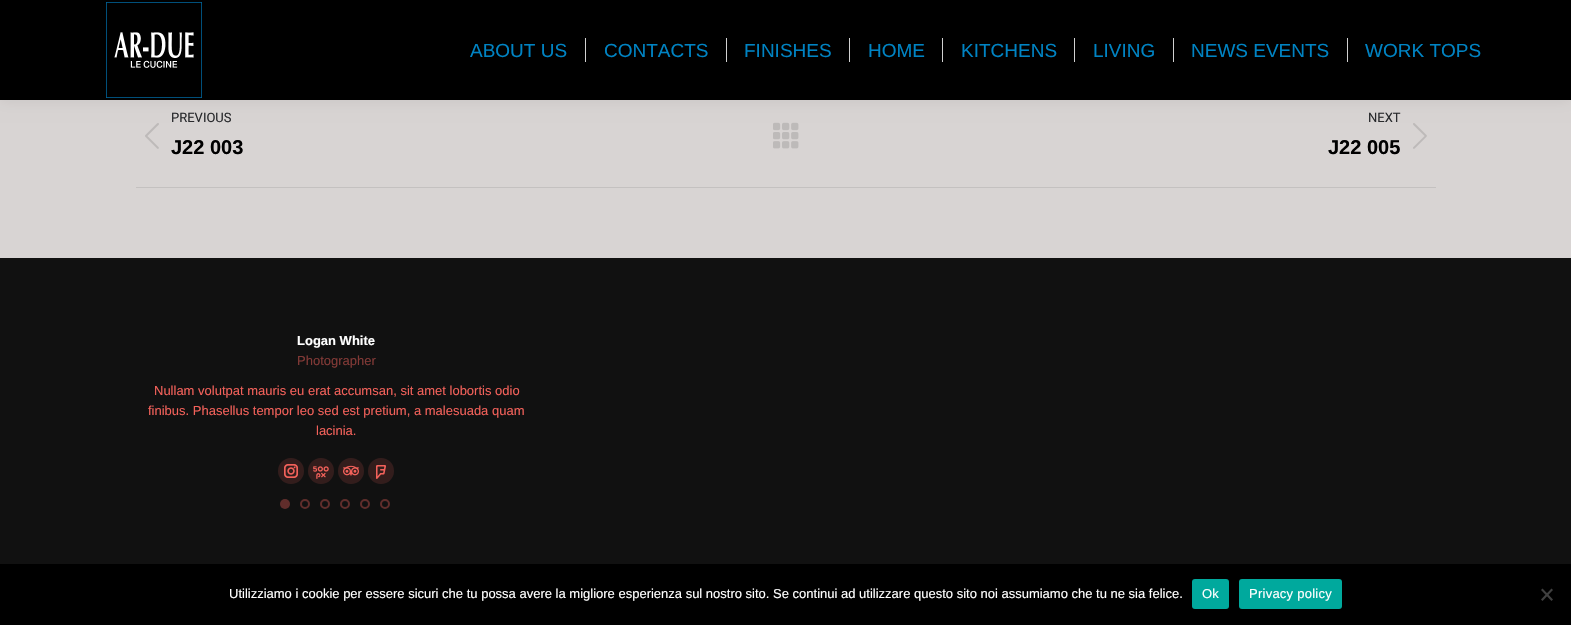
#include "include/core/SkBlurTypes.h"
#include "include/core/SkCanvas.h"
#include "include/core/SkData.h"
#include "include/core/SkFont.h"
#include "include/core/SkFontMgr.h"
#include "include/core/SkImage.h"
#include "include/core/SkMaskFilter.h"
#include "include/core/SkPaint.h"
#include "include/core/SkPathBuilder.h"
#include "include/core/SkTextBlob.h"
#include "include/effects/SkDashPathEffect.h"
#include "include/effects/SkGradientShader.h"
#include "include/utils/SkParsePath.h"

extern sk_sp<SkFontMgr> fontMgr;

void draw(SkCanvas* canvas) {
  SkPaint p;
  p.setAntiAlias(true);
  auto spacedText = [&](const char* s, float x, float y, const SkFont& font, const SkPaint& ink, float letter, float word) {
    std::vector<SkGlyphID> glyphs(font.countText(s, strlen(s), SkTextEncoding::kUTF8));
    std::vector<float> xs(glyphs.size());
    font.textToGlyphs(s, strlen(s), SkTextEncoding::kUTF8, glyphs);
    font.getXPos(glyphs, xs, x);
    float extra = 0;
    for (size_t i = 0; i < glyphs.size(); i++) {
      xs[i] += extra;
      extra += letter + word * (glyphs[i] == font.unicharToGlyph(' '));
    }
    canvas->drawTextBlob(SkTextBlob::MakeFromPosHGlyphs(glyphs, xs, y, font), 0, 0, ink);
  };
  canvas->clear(SkColorSetRGB(216, 212, 211));
  canvas->drawImageRect(SkImages::DeferredFromEncodedData(SkData::MakeFromFileName("images/2.png")), SkRect::MakeLTRB(145, 123, 159, 149), SkSamplingOptions());
  canvas->drawImageRect(SkImages::DeferredFromEncodedData(SkData::MakeFromFileName("images/3.png")), SkRect::MakeLTRB(773, 122, 799, 149), SkSamplingOptions());
  canvas->drawImageRect(SkImages::DeferredFromEncodedData(SkData::MakeFromFileName("images/4.png")), SkRect::MakeLTRB(1413, 123, 1427, 149), SkSamplingOptions());
  p.setColor(SkColorSetARGB(18, 0, 0, 0));
  p.setMaskFilter(SkMaskFilter::MakeBlur(kNormal_SkBlurStyle, 7.5f));
  canvas->drawRect(SkRect::MakeLTRB(-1, -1, 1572, 101), p);
  p.setMaskFilter(nullptr);
  p.setColor(SK_ColorBLACK);
  canvas->drawRect(SkRect::MakeLTRB(0, 0, 1571, 100), p);
  canvas->drawImageRect(SkImages::DeferredFromEncodedData(SkData::MakeFromFileName("images/1.png")), SkRect::MakeLTRB(106, 2, 202, 98), SkSamplingOptions());
  p.setColor(SkColorSetRGB(209, 209, 209));
  canvas->drawRect(SkRect::MakeLTRB(585, 38, 586, 62), p);
  canvas->drawRect(SkRect::MakeLTRB(726, 38, 727, 62), p);
  canvas->drawRect(SkRect::MakeLTRB(849, 38, 850, 62), p);
  canvas->drawRect(SkRect::MakeLTRB(942, 38, 943, 62), p);
  canvas->drawRect(SkRect::MakeLTRB(1074, 38, 1075, 62), p);
  canvas->drawRect(SkRect::MakeLTRB(1173, 38, 1174, 62), p);
  canvas->drawRect(SkRect::MakeLTRB(1347, 38, 1348, 62), p);
  p.setColor(SkColorSetRGB(196, 193, 192));
  canvas->drawRect(SkRect::MakeLTRB(136, 187, 1436, 188), p);
  p.setColor(SkColorSetRGB(17, 17, 17));
  canvas->drawRect(SkRect::MakeLTRB(0, 258, 1571, 564), p);
  p.setColor(SkColorSetRGB(51, 29, 28));
  canvas->drawCircle(291, 471, 13, p);
  canvas->drawImageRect(SkImages::DeferredFromEncodedData(SkData::MakeFromFileName("images/5.png")), SkRect::MakeLTRB(284, 464, 298, 478), SkSamplingOptions());
  canvas->drawCircle(321, 471, 13, p);
  canvas->drawImageRect(SkImages::DeferredFromEncodedData(SkData::MakeFromFileName("images/6.png")), SkRect::MakeLTRB(313, 466, 329, 479), SkSamplingOptions());
  canvas->drawCircle(351, 471, 13, p);
  canvas->drawImageRect(SkImages::DeferredFromEncodedData(SkData::MakeFromFileName("images/7.png")), SkRect::MakeLTRB(343, 465, 359, 476), SkSamplingOptions());
  canvas->drawCircle(381, 471, 13, p);
  canvas->drawImageRect(SkImages::DeferredFromEncodedData(SkData::MakeFromFileName("images/8.png")), SkRect::MakeLTRB(376, 465, 386, 479), SkSamplingOptions());
  p.setColor(SkColorSetRGB(96, 45, 43));
  canvas->drawCircle(285, 504, 5, p);
  p.setStyle(SkPaint::kStroke_Style);
  p.setStrokeWidth(2);
  canvas->drawCircle(305, 504, 4, p);
  canvas->drawCircle(325, 504, 4, p);
  canvas->drawCircle(345, 504, 4, p);
  canvas->drawCircle(365, 504, 4, p);
  canvas->drawCircle(385, 504, 4, p);
  p.setStyle(SkPaint::kFill_Style);
  p.setColor(SK_ColorBLACK);
  canvas->drawRect(SkRect::MakeLTRB(0, 564, 1571, 625), p);
  p.setColor(SkColorSetRGB(0, 169, 157));
  canvas->drawRoundRect(SkRect::MakeLTRB(1192, 579, 1229, 609), 3, 3, p);
  canvas->drawRoundRect(SkRect::MakeLTRB(1239, 579, 1342, 609), 3, 3, p);
  p.setColor(SkColorSetRGB(64, 64, 64));
  canvas->drawPath(SkPathBuilder().moveTo(1551.5f, 588.5f).lineTo(1553, 590).lineTo(1542.5f, 601).lineTo(1541, 599.5f).close().detach(), p);
  canvas->drawPath(SkPathBuilder().moveTo(1541, 590).lineTo(1542.5f, 588.5f).lineTo(1553, 599.5f).lineTo(1551.5f, 601).close().detach(), p);
  SkFont font1(fontMgr->matchFamilyStyle("Liberation Sans", SkFontStyle::Normal()), 19);
  font1.setSubpixel(true);
  p.setColor(SkColorSetRGB(0, 131, 195));
  canvas->drawString("ABOUT US", 470, 57, font1, p);
  canvas->drawString("CONTACTS", 604, 57, font1, p);
  canvas->drawString("FINISHES", 744, 57, font1, p);
  canvas->drawString("HOME", 868, 57, font1, p);
  canvas->drawString("KITCHENS", 961, 57, font1, p);
  canvas->drawString("LIVING", 1093, 57, font1, p);
  canvas->drawString("NEWS EVENTS", 1191, 57, font1, p);
  canvas->drawString("WORK TOPS", 1365, 57, font1, p);
  SkFont font2(fontMgr->matchFamilyStyle("Roboto", SkFontStyle::Normal()), 13);
  font2.setSubpixel(true);
  p.setColor(SkColorSetRGB(41, 42, 45));
  canvas->drawString("PREVIOUS", 171, 122, font2, p);
  SkFont font3(fontMgr->matchFamilyStyle("Liberation Sans", SkFontStyle::Bold()), 20);
  font3.setSubpixel(true);
  p.setColor(SK_ColorBLACK);
  canvas->drawString("J22 003", 171, 154, font3, p);
  p.setColor(SkColorSetRGB(41, 42, 45));
  canvas->drawString("NEXT", 1368, 122, font2, p);
  p.setColor(SK_ColorBLACK);
  canvas->drawString("J22 005", 1328, 154, font3, p);
  SkFont font4(fontMgr->matchFamilyStyle("Liberation Sans", SkFontStyle::Bold()), 13);
  font4.setSubpixel(true);
  p.setColor(SK_ColorWHITE);
  canvas->drawString("Logan White", 297, 345, font4, p);
  SkFont font5(fontMgr->matchFamilyStyle("Liberation Sans", SkFontStyle::Normal()), 13);
  font5.setSubpixel(true);
  p.setColor(SkColorSetRGB(130, 57, 54));
  canvas->drawString("Photographer", 297, 365, font5, p);
  p.setColor(SkColorSetRGB(243, 97, 90));
  canvas->drawString("Nullam volutpat mauris eu erat accumsan, sit amet lobortis odio", 154, 395, font5, p);
  canvas->drawString("finibus. Phasellus tempor leo sed est pretium, a malesuada quam", 148, 415, font5, p);
  canvas->drawString("lacinia.", 316, 435, font5, p);
  p.setColor(SK_ColorWHITE);
  canvas->drawString("Utilizziamo i cookie per essere sicuri che tu possa avere la migliore esperienza sul nostro sito. Se continui ad utilizzare questo sito noi assumiamo che tu ne sia felice.", 229, 598, font5, p);
  spacedText("Ok", 1202, 598, font5, p, 0.25f, 0);
  spacedText("Privacy policy", 1249, 598, font5, p, 0.25f, 0);
}
